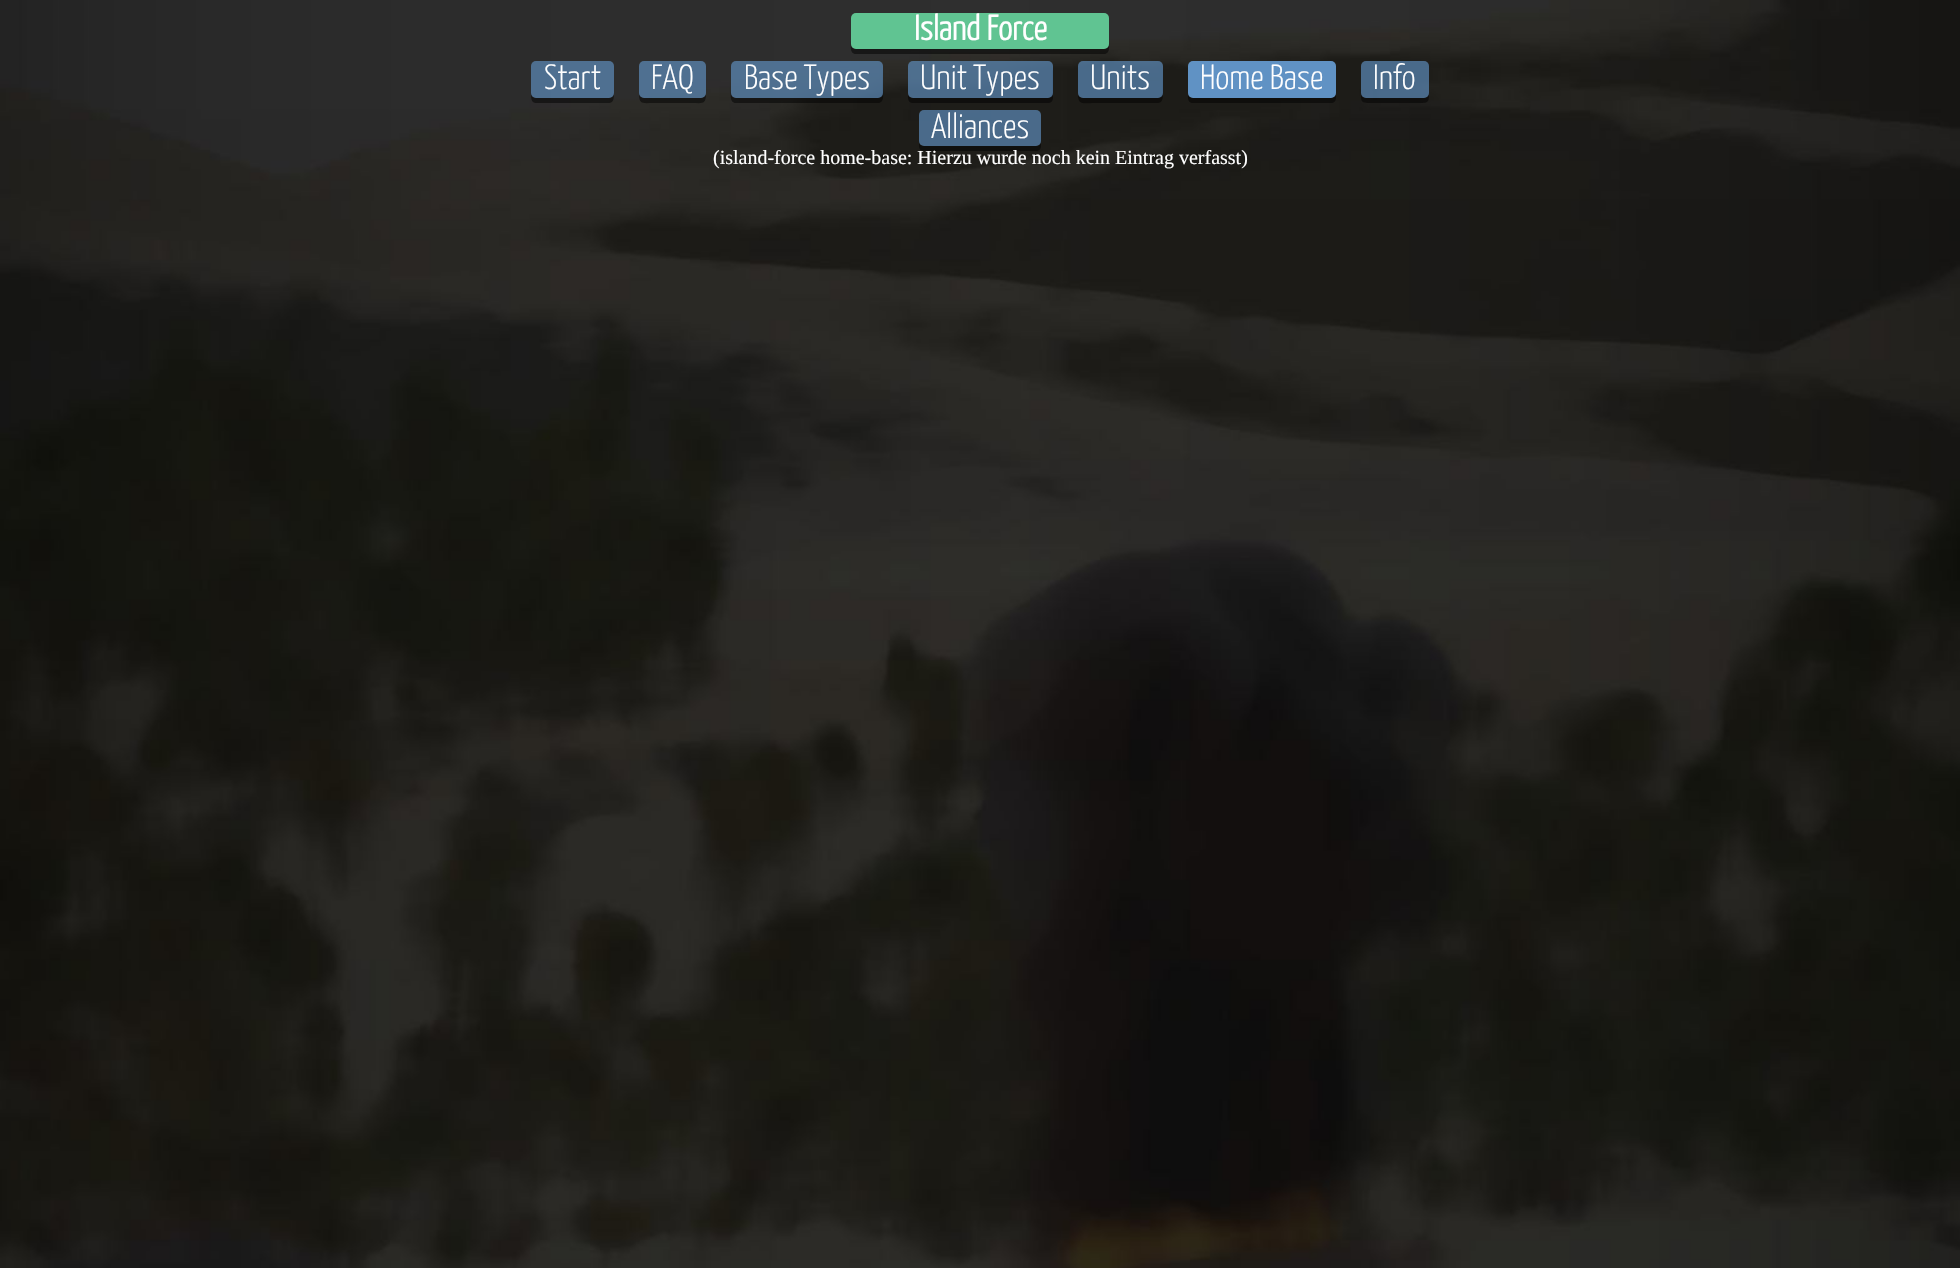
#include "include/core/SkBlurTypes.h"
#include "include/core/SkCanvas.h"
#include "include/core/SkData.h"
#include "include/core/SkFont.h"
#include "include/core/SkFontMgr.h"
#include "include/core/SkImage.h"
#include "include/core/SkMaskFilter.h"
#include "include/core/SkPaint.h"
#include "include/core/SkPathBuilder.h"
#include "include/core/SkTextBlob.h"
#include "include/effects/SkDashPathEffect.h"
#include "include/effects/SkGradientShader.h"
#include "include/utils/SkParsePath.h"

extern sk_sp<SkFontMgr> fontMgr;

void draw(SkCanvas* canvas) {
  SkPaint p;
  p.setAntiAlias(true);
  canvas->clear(SK_ColorWHITE);
  canvas->drawImageRect(SkImages::DeferredFromEncodedData(SkData::MakeFromFileName("images/1.png")), SkRect::MakeLTRB(0, 0, 1960, 1268), SkSamplingOptions());
  p.setColor(SkColorSetARGB(128, 0, 0, 0));
  canvas->drawPath(SkPathBuilder().moveTo(851, 21).lineTo(851, 40).cubicTo(851, 44, 849, 54, 856, 54).lineTo(1104, 54).cubicTo(1111, 54, 1109, 44, 1109, 40).lineTo(1109, 21).lineTo(1109, 44).cubicTo(1109, 47, 1107, 49, 1104, 49).lineTo(856, 49).cubicTo(853, 49, 851, 47, 851, 44).close().detach(), p);
  p.setColor(SkColorSetRGB(96, 196, 146));
  canvas->drawRoundRect(SkRect::MakeLTRB(851, 13, 1109, 49), 5, 5, p);
  p.setColor(SkColorSetARGB(128, 0, 0, 0));
  canvas->drawPath(SkPathBuilder().moveTo(531, 69).lineTo(531, 89).cubicTo(531, 105, 531, 103, 548, 103).lineTo(597, 103).cubicTo(614, 103, 614, 105, 614, 89).lineTo(614, 69).lineTo(614, 92).cubicTo(614, 95, 612, 98, 609, 98).lineTo(536, 98).cubicTo(533, 98, 531, 95, 531, 92).close().detach(), p);
  p.setColor(SkColorSetARGB(168, 96, 146, 196));
  canvas->drawRoundRect(SkRect::MakeLTRB(531, 61, 614, 98), 5, 5, p);
  p.setColor(SkColorSetARGB(128, 0, 0, 0));
  canvas->drawPath(SkPathBuilder().moveTo(639, 94).cubicTo(639, 105, 643, 103, 654, 103).lineTo(692, 103).cubicTo(702, 103, 706, 105, 706, 94).cubicTo(705, 96, 703, 98, 701, 98).lineTo(644, 98).cubicTo(642, 98, 640, 96, 639, 94).close().detach(), p);
  p.setColor(SkColorSetARGB(168, 96, 146, 196));
  canvas->drawRoundRect(SkRect::MakeLTRB(639, 61, 706, 98), 5, 5, p);
  p.setColor(SkColorSetARGB(128, 0, 0, 0));
  canvas->drawPath(SkPathBuilder().moveTo(731, 69).lineTo(731, 89).cubicTo(731, 93, 729, 103, 736, 103).lineTo(878, 103).cubicTo(885, 103, 883, 93, 883, 89).lineTo(882, 69).lineTo(882, 92).cubicTo(882, 95, 880, 98, 878, 98).lineTo(736, 98).cubicTo(733, 98, 731, 95, 731, 92).close().detach(), p);
  p.setColor(SkColorSetARGB(168, 96, 146, 196));
  canvas->drawRoundRect(SkRect::MakeLTRB(731, 61, 883, 98), 5, 5, p);
  p.setColor(SkColorSetRGB(15, 14, 13));
  canvas->drawPath(SkPathBuilder().moveTo(908, 95).lineTo(908, 98).cubicTo(908, 101, 910, 103, 913, 103).lineTo(1048, 103).cubicTo(1051, 103, 1053, 101, 1053, 98).lineTo(1053, 71).lineTo(1052, 69).lineTo(1052, 92).cubicTo(1052, 95, 1050, 98, 1048, 98).lineTo(912, 98).cubicTo(911, 98, 909, 96, 908, 95).close().detach(), p);
  p.setColor(SkColorSetARGB(168, 96, 146, 196));
  canvas->drawRoundRect(SkRect::MakeLTRB(908, 61, 1053, 98), 5, 5, p);
  p.setColor(SkColorSetRGB(15, 14, 12));
  canvas->drawPath(SkPathBuilder().moveTo(1078, 95).cubicTo(1078, 106, 1084, 103, 1096, 103).lineTo(1146, 103).cubicTo(1163, 103, 1163, 105, 1163, 89).lineTo(1162, 69).lineTo(1162, 92).cubicTo(1162, 95, 1160, 98, 1158, 98).lineTo(1082, 98).cubicTo(1081, 98, 1079, 96, 1078, 95).close().detach(), p);
  p.setColor(SkColorSetARGB(168, 96, 146, 196));
  canvas->drawRoundRect(SkRect::MakeLTRB(1078, 61, 1163, 98), 5, 5, p);
  p.setColor(SkColorSetARGB(128, 0, 0, 0));
  canvas->drawPath(SkPathBuilder().moveTo(1188, 95).lineTo(1188, 98).cubicTo(1188, 101, 1190, 103, 1193, 103).lineTo(1331, 103).cubicTo(1334, 103, 1336, 101, 1336, 98).lineTo(1336, 94).cubicTo(1335, 96, 1333, 98, 1331, 98).lineTo(1192, 98).cubicTo(1191, 98, 1189, 96, 1188, 95).close().detach(), p);
  p.setColor(SkColorSetRGB(96, 146, 196));
  canvas->drawRoundRect(SkRect::MakeLTRB(1188, 61, 1336, 98), 5, 5, p);
  p.setColor(SkColorSetARGB(128, 0, 0, 0));
  canvas->drawPath(SkPathBuilder().moveTo(1361, 69).lineTo(1361, 89).cubicTo(1361, 104, 1360, 103, 1376, 103).lineTo(1414, 103).cubicTo(1430, 103, 1429, 104, 1429, 89).lineTo(1429, 69).lineTo(1429, 92).cubicTo(1429, 95, 1427, 98, 1424, 98).lineTo(1366, 98).cubicTo(1363, 98, 1361, 95, 1361, 92).close().detach(), p);
  p.setColor(SkColorSetARGB(168, 96, 146, 196));
  canvas->drawRoundRect(SkRect::MakeLTRB(1361, 61, 1429, 98), 5, 5, p);
  p.setColor(SkColorSetARGB(128, 0, 0, 0));
  canvas->drawPath(SkPathBuilder().moveTo(919, 143).lineTo(919, 146).cubicTo(919, 149, 921, 151, 924, 151).lineTo(1036, 151).cubicTo(1039, 151, 1041, 149, 1041, 146).lineTo(1041, 143).cubicTo(1040, 145, 1038, 146, 1036, 146).lineTo(924, 146).cubicTo(922, 146, 920, 145, 919, 143).close().detach(), p);
  p.setColor(SkColorSetARGB(168, 96, 146, 196));
  canvas->drawRoundRect(SkRect::MakeLTRB(919, 110, 1041, 146), 5, 5, p);
  SkFont font1(fontMgr->matchFamilyStyle("Yanone Kaffeesatz", SkFontStyle::Bold()), 35);
  font1.setSubpixel(true);
  p.setColor(SK_ColorWHITE);
  canvas->drawString("Island Force", 914, 40, font1, p);
  SkFont font2(fontMgr->matchFamilyStyle("Yanone Kaffeesatz", SkFontStyle(300, SkFontStyle::kNormal_Width, SkFontStyle::kUpright_Slant)), 35);
  font2.setSubpixel(true);
  canvas->drawString("Start", 544, 89, font2, p);
  canvas->drawString("FAQ", 651, 89, font2, p);
  canvas->drawString("Base Types", 744, 89, font2, p);
  canvas->drawString("Unit Types", 920, 89, font2, p);
  canvas->drawString("Units", 1090, 89, font2, p);
  canvas->drawString("Home Base", 1200, 89, font2, p);
  canvas->drawString("Info", 1373, 89, font2, p);
  canvas->drawString("Alliances", 931, 138, font2, p);
  SkFont font3(fontMgr->matchFamilyStyle("Liberation Serif", SkFontStyle::Normal()), 20);
  font3.setSubpixel(true);
  canvas->drawString("(island-force home-base: Hierzu wurde noch kein Eintrag verfasst)", 713, 164, font3, p);
}
